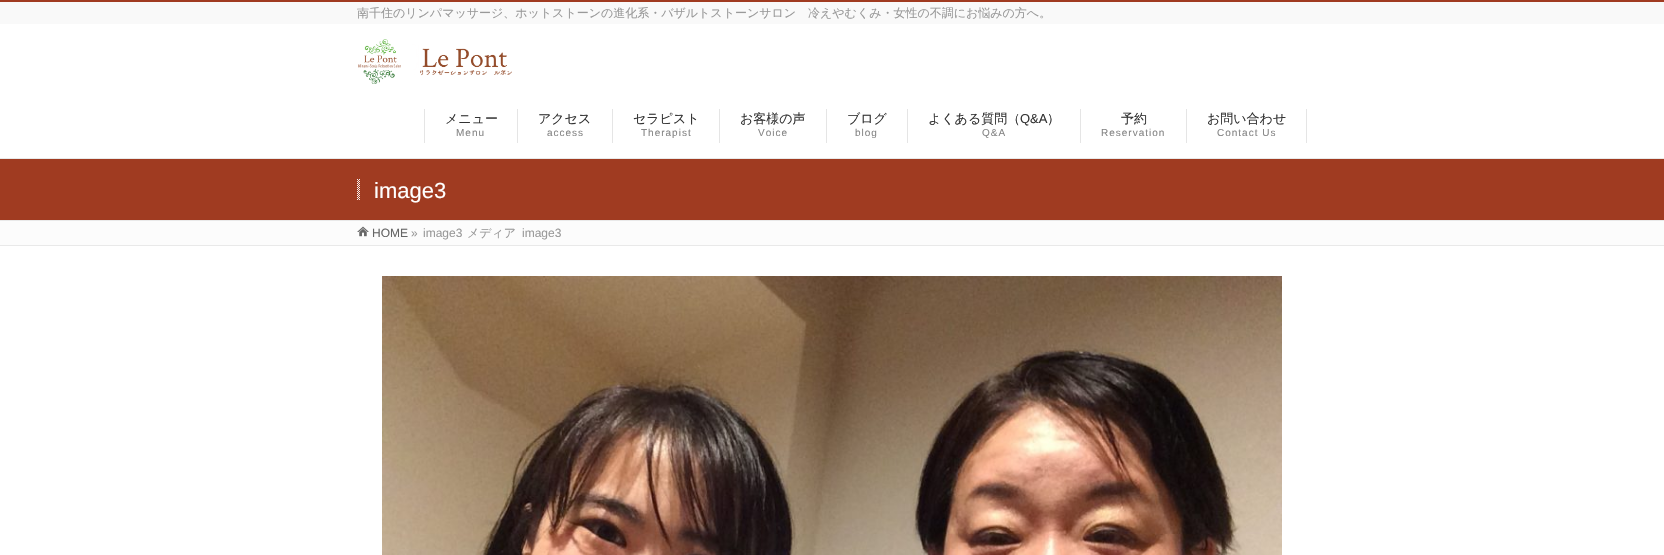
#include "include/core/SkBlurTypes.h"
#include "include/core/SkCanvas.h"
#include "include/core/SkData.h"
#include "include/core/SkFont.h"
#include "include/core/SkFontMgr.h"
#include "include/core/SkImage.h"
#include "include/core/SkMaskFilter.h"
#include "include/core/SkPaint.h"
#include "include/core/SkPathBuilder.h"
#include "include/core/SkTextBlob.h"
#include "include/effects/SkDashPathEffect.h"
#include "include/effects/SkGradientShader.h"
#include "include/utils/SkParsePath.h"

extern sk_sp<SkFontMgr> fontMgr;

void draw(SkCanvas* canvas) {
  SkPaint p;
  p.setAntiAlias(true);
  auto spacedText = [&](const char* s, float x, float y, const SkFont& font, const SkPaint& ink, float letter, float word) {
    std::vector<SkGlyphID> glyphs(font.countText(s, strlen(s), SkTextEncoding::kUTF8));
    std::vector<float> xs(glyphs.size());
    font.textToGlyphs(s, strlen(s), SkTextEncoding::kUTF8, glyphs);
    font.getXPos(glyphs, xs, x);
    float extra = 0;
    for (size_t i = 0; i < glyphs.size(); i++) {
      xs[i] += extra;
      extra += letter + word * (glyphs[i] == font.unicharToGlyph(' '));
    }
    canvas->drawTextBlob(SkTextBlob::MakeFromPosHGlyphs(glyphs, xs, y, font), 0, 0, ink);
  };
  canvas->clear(SK_ColorWHITE);
  p.setColor(SkColorSetRGB(249, 249, 249));
  canvas->drawRect(SkRect::MakeLTRB(0, 2, 1664, 24), p);
  p.setColor(SkColorSetRGB(160, 59, 33));
  canvas->drawRect(SkRect::MakeLTRB(0, 0, 1664, 2), p);
  canvas->drawImageRect(SkImages::DeferredFromEncodedData(SkData::MakeFromFileName("images/1.png")), SkRect::MakeLTRB(358, 39, 512, 84), SkSamplingOptions());
  p.setColor(SkColorSetRGB(229, 229, 229));
  canvas->drawRect(SkRect::MakeLTRB(517, 109, 518, 143), p);
  canvas->drawRect(SkRect::MakeLTRB(424, 109, 425, 143), p);
  canvas->drawRect(SkRect::MakeLTRB(612, 109, 613, 143), p);
  canvas->drawRect(SkRect::MakeLTRB(719, 109, 720, 143), p);
  canvas->drawRect(SkRect::MakeLTRB(826, 109, 827, 143), p);
  canvas->drawRect(SkRect::MakeLTRB(907, 109, 908, 143), p);
  canvas->drawRect(SkRect::MakeLTRB(1080, 109, 1081, 143), p);
  canvas->drawRect(SkRect::MakeLTRB(1186, 109, 1187, 143), p);
  canvas->drawRect(SkRect::MakeLTRB(1306, 109, 1307, 143), p);
  p.setColor(SkColorSetRGB(160, 59, 33));
  canvas->drawRect(SkRect::MakeLTRB(0, 159, 1664, 220), p);
  p.setColor(SkColorSetRGB(233, 233, 233));
  canvas->drawRect(SkRect::MakeLTRB(0, 158, 1664, 159), p);
  canvas->drawRect(SkRect::MakeLTRB(0, 220, 1664, 221), p);
  canvas->drawImageRect(SkImages::DeferredFromEncodedData(SkData::MakeFromFileName("images/2.png")), SkRect::MakeLTRB(357, 179, 360, 200), SkSamplingOptions());
  p.setColor(SkColorSetRGB(252, 252, 252));
  canvas->drawRect(SkRect::MakeLTRB(0, 221, 1664, 245), p);
  canvas->drawImageRect(SkImages::DeferredFromEncodedData(SkData::MakeFromFileName("images/3.png")), SkRect::MakeLTRB(357, 226, 369, 237), SkSamplingOptions());
  p.setColor(SkColorSetRGB(233, 233, 233));
  canvas->drawRect(SkRect::MakeLTRB(0, 245, 1664, 246), p);
  canvas->drawImageRect(SkImages::DeferredFromEncodedData(SkData::MakeFromFileName("images/4.png")), SkRect::MakeLTRB(382, 276, 1282, 555), SkSamplingOptions());
  SkFont font1(fontMgr->matchFamilyStyle("WenQuanYi Zen Hei", SkFontStyle(500, SkFontStyle::kNormal_Width, SkFontStyle::kUpright_Slant)), 12);
  font1.setSubpixel(true);
  p.setColor(SkColorSetRGB(153, 153, 153));
  canvas->drawString("南千住のリンパマッサージ、ホットストーンの進化系・バザルトストーンサロン　冷えやむくみ・女性の不調にお悩みの方へ。", 357, 17, font1, p);
  SkFont font2(fontMgr->matchFamilyStyle("WenQuanYi Zen Hei", SkFontStyle(500, SkFontStyle::kNormal_Width, SkFontStyle::kUpright_Slant)), 13);
  font2.setSubpixel(true);
  p.setColor(SkColorSetRGB(51, 51, 51));
  canvas->drawString("メニュー", 445, 123, font2, p);
  SkFont font3(fontMgr->matchFamilyStyle("Liberation Sans", SkFontStyle::Normal()), 10);
  font3.setSubpixel(true);
  p.setColor(SkColorSetRGB(133, 133, 133));
  spacedText("Menu", 456, 136, font3, p, 1, 0);
  p.setColor(SkColorSetRGB(51, 51, 51));
  canvas->drawString("アクセス", 538, 123, font2, p);
  p.setColor(SkColorSetRGB(133, 133, 133));
  spacedText("access", 547, 136, font3, p, 1, 0);
  p.setColor(SkColorSetRGB(51, 51, 51));
  canvas->drawString("セラピスト", 633, 123, font2, p);
  p.setColor(SkColorSetRGB(133, 133, 133));
  spacedText("Therapist", 641, 136, font3, p, 1, 0);
  p.setColor(SkColorSetRGB(51, 51, 51));
  canvas->drawString("お客様の声", 740, 123, font2, p);
  p.setColor(SkColorSetRGB(133, 133, 133));
  spacedText("Voice", 758, 136, font3, p, 1, 0);
  p.setColor(SkColorSetRGB(51, 51, 51));
  canvas->drawString("ブログ", 847, 123, font2, p);
  p.setColor(SkColorSetRGB(133, 133, 133));
  spacedText("blog", 855, 136, font3, p, 1, 0);
  p.setColor(SkColorSetRGB(51, 51, 51));
  canvas->drawString("よくある質問（", 928, 123, font2, p);
  SkFont font4(fontMgr->matchFamilyStyle("Liberation Sans", SkFontStyle::Normal()), 13);
  font4.setSubpixel(true);
  canvas->drawString("Q&A", 1020, 123, font4, p);
  canvas->drawString("）", 1047, 123, font2, p);
  p.setColor(SkColorSetRGB(133, 133, 133));
  spacedText("Q&A", 982, 136, font3, p, 1, 0);
  p.setColor(SkColorSetRGB(51, 51, 51));
  canvas->drawString("予約", 1121, 123, font2, p);
  p.setColor(SkColorSetRGB(133, 133, 133));
  spacedText("Reservation", 1101, 136, font3, p, 1, 0);
  p.setColor(SkColorSetRGB(51, 51, 51));
  canvas->drawString("お問い合わせ", 1207, 123, font2, p);
  p.setColor(SkColorSetRGB(133, 133, 133));
  spacedText("Contact Us", 1217, 136, font3, p, 1, 0);
  SkFont font5(fontMgr->matchFamilyStyle("Liberation Sans", SkFontStyle::Normal()), 22);
  font5.setSubpixel(true);
  p.setColor(SK_ColorWHITE);
  canvas->drawString("image3", 374, 198, font5, p);
  SkFont font6(fontMgr->matchFamilyStyle("Liberation Sans", SkFontStyle::Normal()), 12);
  font6.setSubpixel(true);
  p.setColor(SkColorSetRGB(102, 102, 102));
  canvas->drawString("HOME", 372, 237, font6, p);
  p.setColor(SkColorSetRGB(153, 153, 153));
  canvas->drawString("»", 411, 237, font6, p);
  canvas->drawString("image3", 423, 237, font6, p);
  canvas->drawString("メディア", 467, 237, font1, p);
  canvas->drawString("image3", 522, 237, font6, p);
}
